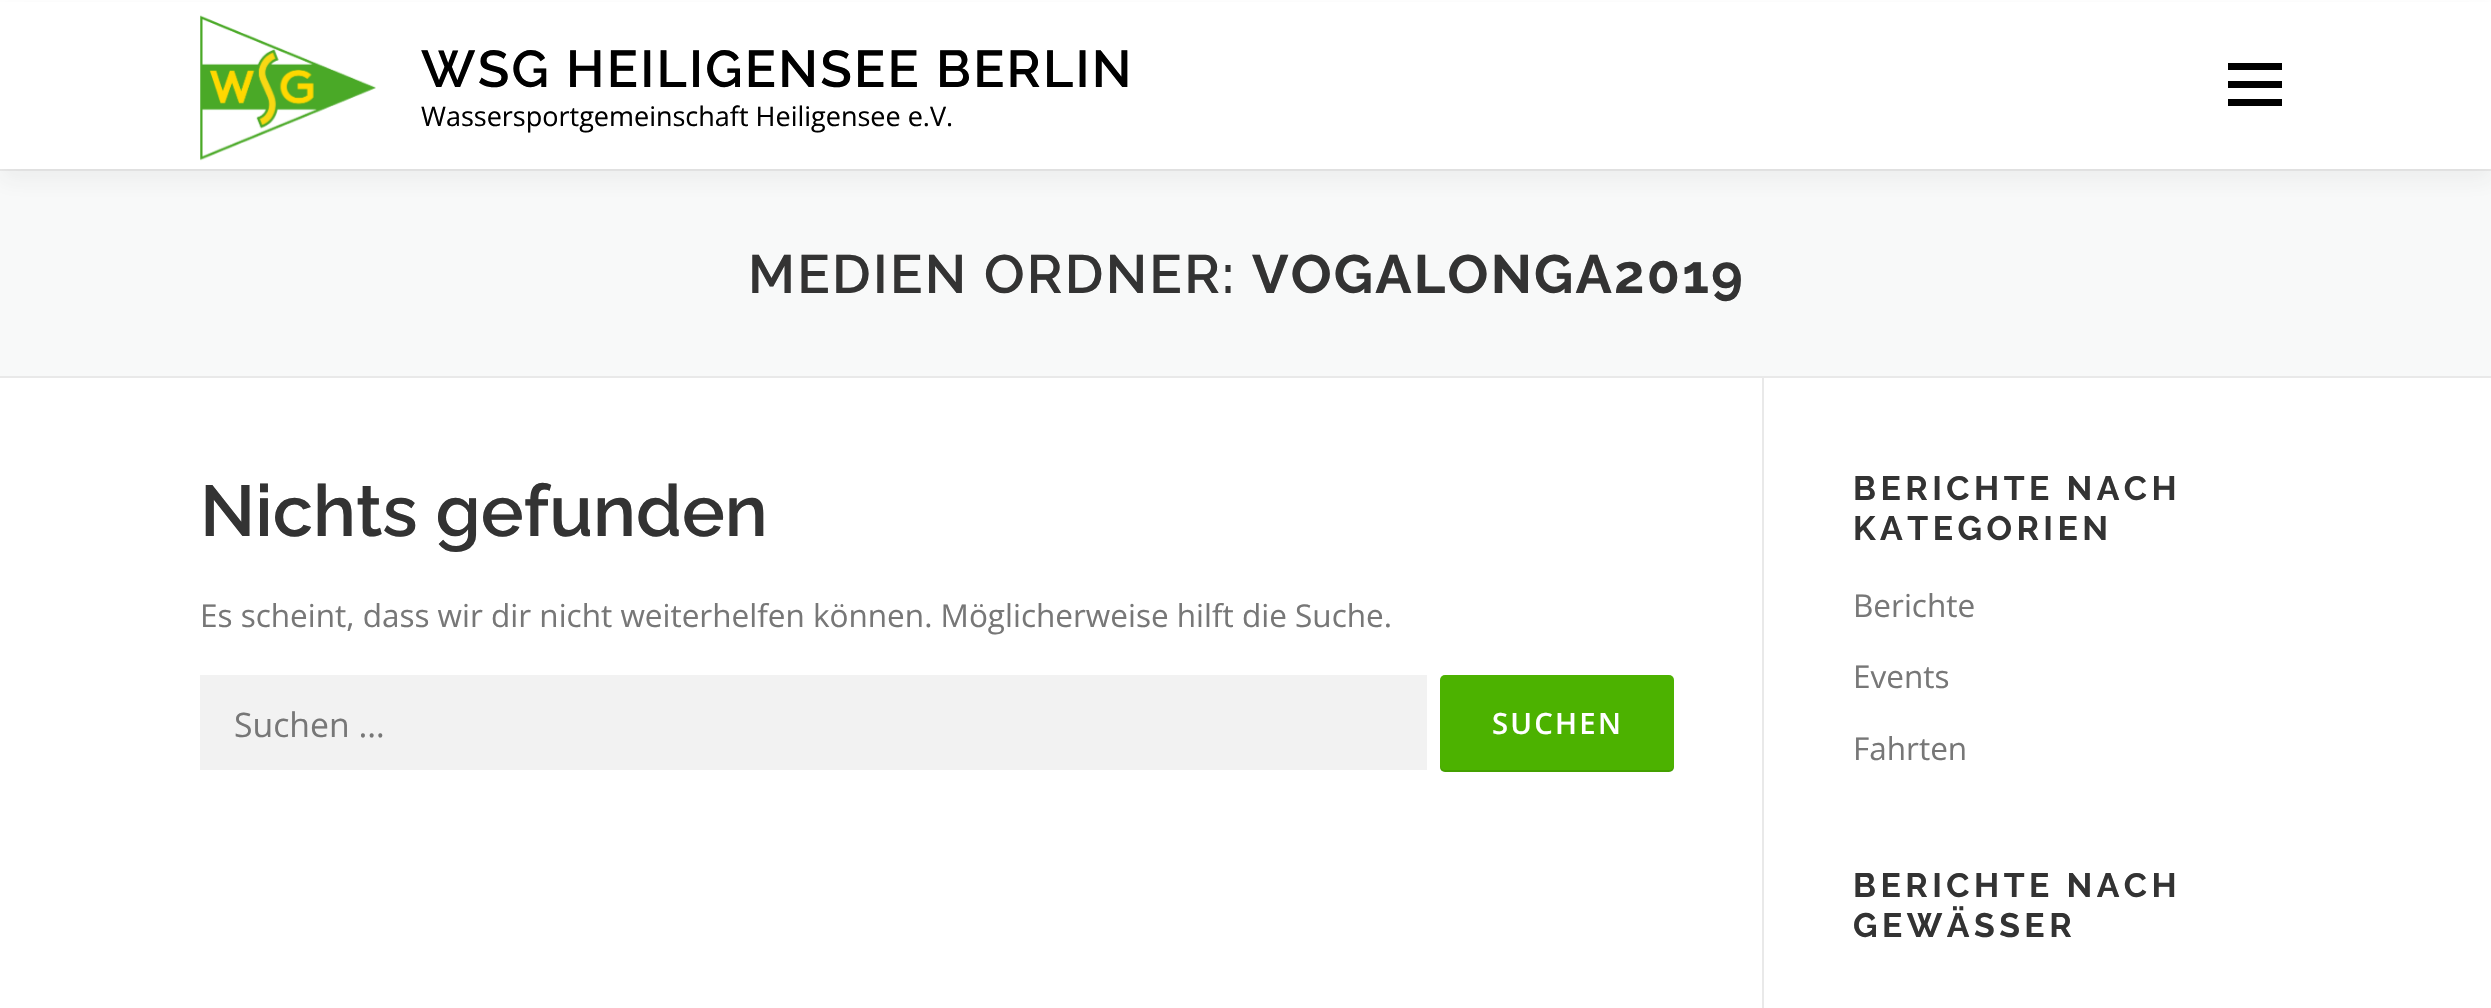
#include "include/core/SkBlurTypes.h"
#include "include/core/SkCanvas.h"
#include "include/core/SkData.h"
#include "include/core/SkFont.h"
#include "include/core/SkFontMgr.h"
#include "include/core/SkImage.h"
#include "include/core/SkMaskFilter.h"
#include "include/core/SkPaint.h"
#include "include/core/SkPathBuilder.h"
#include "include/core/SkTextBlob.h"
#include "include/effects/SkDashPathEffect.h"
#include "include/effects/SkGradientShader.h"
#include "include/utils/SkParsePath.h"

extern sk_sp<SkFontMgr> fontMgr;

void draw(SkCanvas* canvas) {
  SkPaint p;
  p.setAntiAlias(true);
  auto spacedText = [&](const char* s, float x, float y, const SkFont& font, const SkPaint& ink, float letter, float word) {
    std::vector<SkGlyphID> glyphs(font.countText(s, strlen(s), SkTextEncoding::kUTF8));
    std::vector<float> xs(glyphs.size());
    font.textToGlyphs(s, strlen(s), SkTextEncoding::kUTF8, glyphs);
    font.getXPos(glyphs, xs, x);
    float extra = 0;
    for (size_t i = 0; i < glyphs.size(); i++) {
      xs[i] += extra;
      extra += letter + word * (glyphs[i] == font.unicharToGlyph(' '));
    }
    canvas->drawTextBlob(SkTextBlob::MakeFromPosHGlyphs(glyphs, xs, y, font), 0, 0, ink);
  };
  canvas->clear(SK_ColorWHITE);
  p.setColor(SkColorSetRGB(248, 249, 249));
  canvas->drawRect(SkRect::MakeLTRB(0, 171, 2491, 376), p);
  p.setColor(SkColorSetRGB(233, 233, 233));
  canvas->drawRect(SkRect::MakeLTRB(0, 169, 2491, 171), p);
  p.setColor(SkColorSetARGB(15, 50, 50, 50));
  p.setMaskFilter(SkMaskFilter::MakeBlur(kNormal_SkBlurStyle, 11));
  canvas->drawRect(SkRect::MakeLTRB(0, 11, 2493, 180), p);
  p.setMaskFilter(nullptr);
  p.setColor(SK_ColorWHITE);
  canvas->drawRect(SkRect::MakeLTRB(0, 2, 2491, 169), p);
  canvas->drawImageRect(SkImages::DeferredFromEncodedData(SkData::MakeFromFileName("images/1.png")), SkRect::MakeLTRB(200, 15, 376, 161), SkSamplingOptions());
  p.setColor(SK_ColorBLACK);
  canvas->drawRect(SkRect::MakeLTRB(2228, 81, 2282, 88), p);
  canvas->drawRect(SkRect::MakeLTRB(2228, 63, 2282, 70), p);
  canvas->drawRect(SkRect::MakeLTRB(2228, 99, 2282, 106), p);
  p.setColor(SkColorSetRGB(233, 233, 233));
  canvas->drawRect(SkRect::MakeLTRB(0, 376, 2491, 378), p);
  p.setColor(SkColorSetRGB(242, 242, 242));
  canvas->drawRect(SkRect::MakeLTRB(200, 675, 1427, 770), p);
  p.setColor(SkColorSetRGB(76, 178, 0));
  canvas->drawRoundRect(SkRect::MakeLTRB(1440, 675, 1674, 772), 5, 5, p);
  p.setColor(SkColorSetARGB(26, 0, 0, 0));
  canvas->drawPath(SkPathBuilder().moveTo(1440, 765).cubicTo(1440, 768, 1440, 771, 1444, 772).lineTo(1670, 772).cubicTo(1674, 771, 1674, 768, 1674, 765).cubicTo(1674, 767, 1672, 770, 1670, 770).lineTo(1444, 770).cubicTo(1442, 770, 1440, 767, 1440, 765).close().detach(), p);
  p.setColor(SkColorSetRGB(233, 233, 233));
  canvas->drawRect(SkRect::MakeLTRB(1762, 378, 1764, 1008), p);
  SkFont font1(fontMgr->matchFamilyStyle("Raleway", SkFontStyle(600, SkFontStyle::kNormal_Width, SkFontStyle::kUpright_Slant)), 51.75f);
  font1.setSubpixel(true);
  p.setColor(SK_ColorBLACK);
  spacedText("WSG HEILIGENSEE BERLIN", 421, 87, font1, p, 2.25f, 0);
  SkFont font2(fontMgr->matchFamilyStyle("Open Sans", SkFontStyle::Normal()), 27);
  font2.setSubpixel(true);
  canvas->drawString("Wassersportgemeinschaft Heiligensee e.V.", 421, 126, font2, p);
  SkFont font3(fontMgr->matchFamilyStyle("Raleway", SkFontStyle(600, SkFontStyle::kNormal_Width, SkFontStyle::kUpright_Slant)), 54);
  font3.setSubpixel(true);
  p.setColor(SkColorSetRGB(51, 51, 51));
  spacedText("MEDIEN ORDNER:", 748, 293, font3, p, 2.25f, 0);
  SkFont font4(fontMgr->matchFamilyStyle("Raleway", SkFontStyle::Bold()), 54);
  font4.setSubpixel(true);
  spacedText("VOGALONGA2019", 1252, 293, font4, p, 2.25f, 0);
  SkFont font5(fontMgr->matchFamilyStyle("Raleway", SkFontStyle(600, SkFontStyle::kNormal_Width, SkFontStyle::kUpright_Slant)), 72);
  font5.setSubpixel(true);
  canvas->drawString("Nichts gefunden", 200, 536, font5, p);
  SkFont font6(fontMgr->matchFamilyStyle("Open Sans", SkFontStyle::Normal()), 31.5f);
  font6.setSubpixel(true);
  p.setColor(SkColorSetRGB(119, 119, 119));
  canvas->drawString("Es scheint, dass wir dir nicht weiterhelfen können. Möglicherweise hilft die Suche.", 200, 627, font6, p);
  SkFont font7(fontMgr->matchFamilyStyle("Open Sans", SkFontStyle::Normal()), 33.75f);
  font7.setSubpixel(true);
  canvas->drawString("Suchen …", 234, 737, font7, p);
  SkFont font8(fontMgr->matchFamilyStyle("Open Sans", SkFontStyle(600, SkFontStyle::kNormal_Width, SkFontStyle::kUpright_Slant)), 29.25f);
  font8.setSubpixel(true);
  p.setColor(SK_ColorWHITE);
  spacedText("SUCHEN", 1492, 734, font8, p, 2.25f, 0);
  SkFont font9(fontMgr->matchFamilyStyle("Raleway", SkFontStyle::Bold()), 33.75f);
  font9.setSubpixel(true);
  p.setColor(SkColorSetRGB(51, 51, 51));
  spacedText("BERICHTE NACH", 1853, 500, font9, p, 4.5f, 0);
  spacedText("KATEGORIEN", 1853, 540, font9, p, 4.5f, 0);
  p.setColor(SkColorSetRGB(119, 119, 119));
  canvas->drawString("Berichte", 1853, 617, font6, p);
  canvas->drawString("Events", 1853, 688, font6, p);
  canvas->drawString("Fahrten", 1853, 760, font6, p);
  p.setColor(SkColorSetRGB(51, 51, 51));
  spacedText("BERICHTE NACH", 1853, 897, font9, p, 4.5f, 0);
  spacedText("GEWÄSSER", 1853, 937, font9, p, 4.5f, 0);
}
